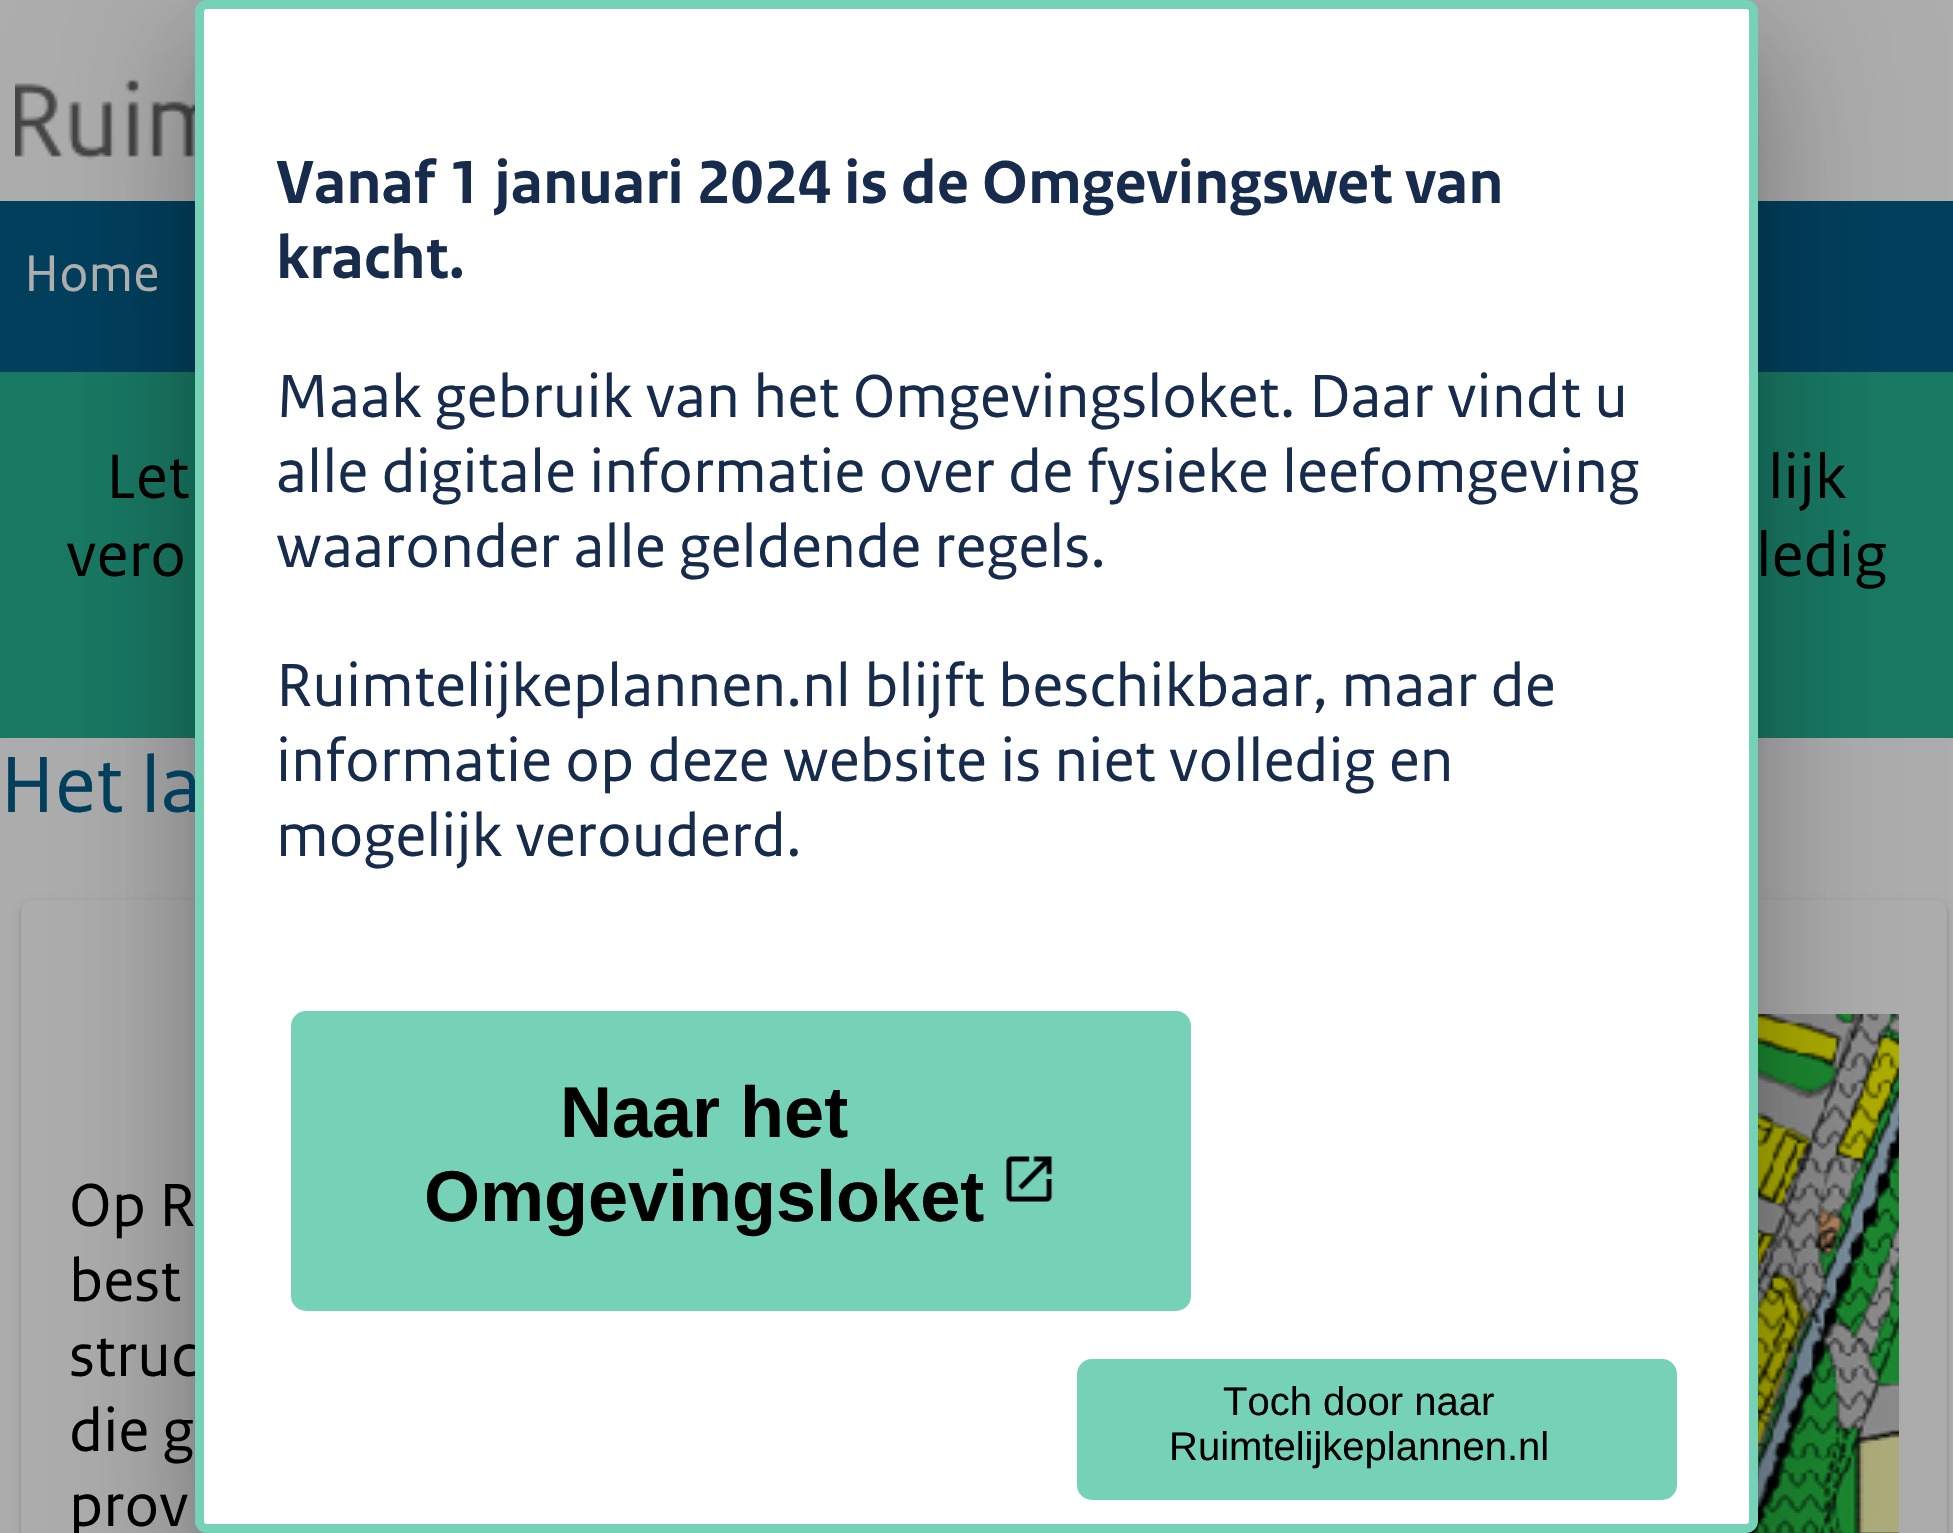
#include "include/core/SkBlurTypes.h"
#include "include/core/SkCanvas.h"
#include "include/core/SkData.h"
#include "include/core/SkFont.h"
#include "include/core/SkFontMgr.h"
#include "include/core/SkImage.h"
#include "include/core/SkMaskFilter.h"
#include "include/core/SkPaint.h"
#include "include/core/SkPathBuilder.h"
#include "include/core/SkTextBlob.h"
#include "include/effects/SkDashPathEffect.h"
#include "include/effects/SkGradientShader.h"
#include "include/utils/SkParsePath.h"

extern sk_sp<SkFontMgr> fontMgr;

void draw(SkCanvas* canvas) {
  SkPaint p;
  p.setAntiAlias(true);
  canvas->clear(SkColorSetRGB(173, 173, 173));
  canvas->drawImageRect(SkImages::DeferredFromEncodedData(SkData::MakeFromFileName("images/2.png")), SkRect::MakeLTRB(15, 78, 195, 160), SkSamplingOptions());
  p.setColor(SkColorSetRGB(1, 63, 93));
  canvas->drawRect(SkRect::MakeLTRB(0, 201, 1953, 372), p);
  p.setColor(SkColorSetRGB(24, 121, 99));
  canvas->drawRect(SkRect::MakeLTRB(0, 372, 1953, 738), p);
  p.setColor(SkColorSetARGB(31, 0, 0, 0));
  p.setMaskFilter(SkMaskFilter::MakeBlur(kNormal_SkBlurStyle, 4.5f));
  canvas->drawRoundRect(SkRect::MakeLTRB(21, 903, 1947, 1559), 12, 12, p);
  p.setMaskFilter(nullptr);
  p.setColor(SkColorSetARGB(36, 0, 0, 0));
  p.setMaskFilter(SkMaskFilter::MakeBlur(kNormal_SkBlurStyle, 1.5f));
  canvas->drawRoundRect(SkRect::MakeLTRB(21, 903, 1947, 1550), 12, 12, p);
  p.setMaskFilter(nullptr);
  p.setColor(SkColorSetRGB(173, 173, 173));
  canvas->drawRoundRect(SkRect::MakeLTRB(21, 900, 1947, 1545), 12, 12, p);
  canvas->drawImageRect(SkImages::DeferredFromEncodedData(SkData::MakeFromFileName("images/3.png")), SkRect::MakeLTRB(1746, 1014, 1899, 1533), SkSamplingOptions());
  p.setColor(SkColorSetARGB(31, 0, 0, 0));
  p.setMaskFilter(SkMaskFilter::MakeBlur(kNormal_SkBlurStyle, 69));
  canvas->drawRoundRect(SkRect::MakeLTRB(171, 3, 1782, 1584), 36, 36, p);
  p.setMaskFilter(nullptr);
  p.setColor(SkColorSetARGB(36, 0, 0, 0));
  p.setMaskFilter(SkMaskFilter::MakeBlur(kNormal_SkBlurStyle, 57));
  canvas->drawRoundRect(SkRect::MakeLTRB(186, 63, 1767, 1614), 21, 21, p);
  p.setMaskFilter(nullptr);
  p.setColor(SkColorSetARGB(51, 0, 0, 0));
  p.setMaskFilter(SkMaskFilter::MakeBlur(kNormal_SkBlurStyle, 22.5f));
  canvas->drawRect(SkRect::MakeLTRB(216, 54, 1737, 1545), p);
  p.setMaskFilter(nullptr);
  SkFont font1(fontMgr->matchFamilyStyle("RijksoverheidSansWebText", SkFontStyle::Normal()), 54);
  font1.setSubpixel(true);
  p.setColor(SkColorSetRGB(173, 173, 173));
  canvas->drawString("Home", 24, 291, font1, p);
  SkFont font2(fontMgr->matchFamilyStyle("RijksoverheidSansWebText", SkFontStyle::Normal()), 66);
  font2.setSubpixel(true);
  p.setColor(SK_ColorBLACK);
  canvas->drawString("Let", 106, 498, font2, p);
  canvas->drawString("lijk", 1768, 498, font2, p);
  canvas->drawString("vero", 66, 576, font2, p);
  canvas->drawString("ledig", 1756, 576, font2, p);
  SkFont font3(fontMgr->matchFamilyStyle("RijksoverheidSansWebText", SkFontStyle::Normal()), 84);
  font3.setSubpixel(true);
  p.setColor(SkColorSetRGB(1, 63, 93));
  canvas->drawString("Het la", 0, 812, font3, p);
  SkFont font4(fontMgr->matchFamilyStyle("RijksoverheidSansWebText", SkFontStyle::Normal()), 64);
  font4.setSubpixel(true);
  p.setColor(SK_ColorBLACK);
  canvas->drawString("Op R", 69, 1226, font4, p);
  canvas->drawString("best", 69, 1301, font4, p);
  canvas->drawString("struc", 69, 1376, font4, p);
  p.setColor(SK_ColorWHITE);
  canvas->drawRoundRect(SkRect::MakeLTRB(199.5f, 4.5f, 1753.5f, 1528.5f), 7.5f, 7.5f, p);
  p.setStyle(SkPaint::kStroke_Style);
  p.setStrokeWidth(9);
  p.setColor(SkColorSetRGB(118, 210, 182));
  canvas->drawRoundRect(SkRect::MakeLTRB(199.5f, 4.5f, 1753.5f, 1528.5f), 7.5f, 7.5f, p);
  p.setStyle(SkPaint::kFill_Style);
  canvas->drawRoundRect(SkRect::MakeLTRB(291, 1011, 1191, 1311), 15, 15, p);
  canvas->drawImageRect(SkImages::DeferredFromEncodedData(SkData::MakeFromFileName("images/1.png")), SkRect::MakeLTRB(1006, 1156, 1053, 1202), SkSamplingOptions());
  p.setColor(SkColorSetRGB(23, 43, 77));
  canvas->drawString("mogelijk verouderd.", 276, 856, font4, p);
  canvas->drawString("informatie op deze website is niet volledig en", 276, 781, font4, p);
  canvas->drawString("Ruimtelijkeplannen.nl blijft beschikbaar, maar de", 276, 706, font4, p);
  canvas->drawString("waaronder alle geldende regels.", 276, 567, font4, p);
  canvas->drawString("alle digitale informatie over de fysieke leefomgeving", 276, 492, font4, p);
  canvas->drawString("Maak gebruik van het Omgevingsloket. Daar vindt u", 276, 417, font4, p);
  SkFont font5(fontMgr->matchFamilyStyle("RijksoverheidSansWebText", SkFontStyle::Bold()), 64);
  font5.setSubpixel(true);
  canvas->drawString("kracht.", 276, 278, font5, p);
  canvas->drawString("Vanaf 1 januari 2024 is de Omgevingswet van", 276, 203, font5, p);
  p.setColor(SkColorSetRGB(118, 210, 182));
  canvas->drawRoundRect(SkRect::MakeLTRB(1077, 1359, 1677, 1500), 15, 15, p);
  SkFont font6(fontMgr->matchFamilyStyle("Liberation Sans", SkFontStyle::Normal()), 40);
  font6.setSubpixel(true);
  p.setColor(SK_ColorBLACK);
  canvas->drawString("Ruimtelijkeplannen.nl", 1169, 1460, font6, p);
  canvas->drawString("Toch door naar", 1223, 1415, font6, p);
  SkFont font7(fontMgr->matchFamilyStyle("Liberation Sans", SkFontStyle::Bold()), 72);
  font7.setSubpixel(true);
  canvas->drawString("Omgevingsloket", 424, 1221, font7, p);
  canvas->drawString("Naar het", 560, 1137, font7, p);
  canvas->drawString("die g", 69, 1451, font4, p);
  canvas->drawString("prov", 69, 1526, font4, p);
}
